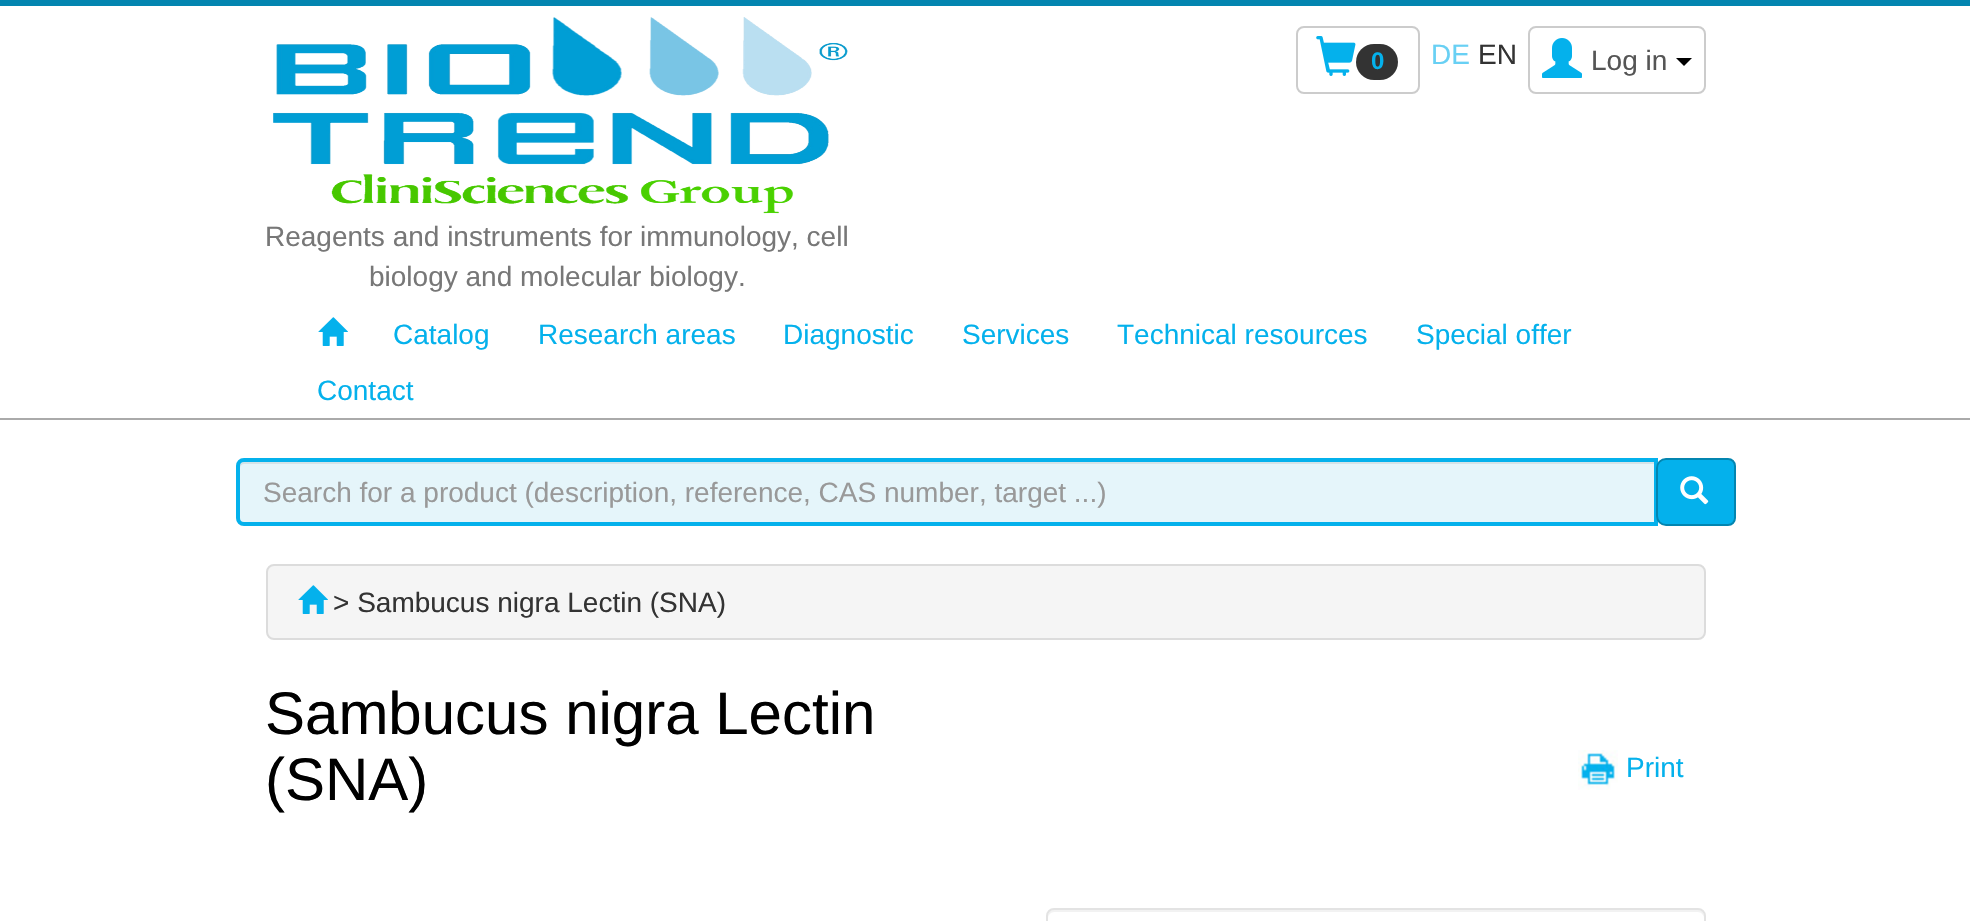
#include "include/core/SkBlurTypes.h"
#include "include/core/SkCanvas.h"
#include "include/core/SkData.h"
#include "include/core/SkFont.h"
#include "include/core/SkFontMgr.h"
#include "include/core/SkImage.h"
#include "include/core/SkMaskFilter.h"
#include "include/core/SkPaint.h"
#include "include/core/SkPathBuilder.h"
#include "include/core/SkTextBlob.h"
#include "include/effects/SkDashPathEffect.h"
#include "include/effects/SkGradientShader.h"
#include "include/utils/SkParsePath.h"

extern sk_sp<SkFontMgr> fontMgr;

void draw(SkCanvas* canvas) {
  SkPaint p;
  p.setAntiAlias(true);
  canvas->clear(SK_ColorWHITE);
  p.setColor(SkColorSetRGB(3, 133, 176));
  canvas->drawRect(SkRect::MakeLTRB(0, 0, 1970, 6), p);
  p.setColor(SkColorSetRGB(170, 170, 170));
  canvas->drawRect(SkRect::MakeLTRB(0, 418, 1970, 420), p);
  p.setStyle(SkPaint::kStroke_Style);
  p.setStrokeWidth(2);
  p.setColor(SkColorSetRGB(204, 204, 204));
  canvas->drawRoundRect(SkRect::MakeLTRB(1297, 27, 1419, 93), 7, 7, p);
  canvas->drawImageRect(SkImages::DeferredFromEncodedData(SkData::MakeFromFileName("images/1.png")), SkRect::MakeLTRB(1316, 36, 1356, 76), SkSamplingOptions());
  p.setStyle(SkPaint::kFill_Style);
  p.setColor(SkColorSetRGB(51, 51, 51));
  canvas->drawRoundRect(SkRect::MakeLTRB(1356, 44, 1398, 80), 18, 18, p);
  p.setStyle(SkPaint::kStroke_Style);
  p.setColor(SkColorSetRGB(204, 204, 204));
  canvas->drawRoundRect(SkRect::MakeLTRB(1529, 27, 1705, 93), 7, 7, p);
  canvas->drawImageRect(SkImages::DeferredFromEncodedData(SkData::MakeFromFileName("images/2.png")), SkRect::MakeLTRB(1542, 38, 1582, 78), SkSamplingOptions());
  p.setStyle(SkPaint::kFill_Style);
  p.setColor(SK_ColorBLACK);
  canvas->drawPath(SkPathBuilder().moveTo(1676, 58).lineTo(1692, 58).lineTo(1684, 66).close().detach(), p);
  canvas->drawImageRect(SkImages::DeferredFromEncodedData(SkData::MakeFromFileName("images/3.png")), SkRect::MakeLTRB(273, 17, 848, 214), SkSamplingOptions());
  canvas->drawImageRect(SkImages::DeferredFromEncodedData(SkData::MakeFromFileName("images/4.png")), SkRect::MakeLTRB(318, 317, 348, 346), SkSamplingOptions());
  p.setColor(SkColorSetRGB(229, 245, 250));
  canvas->drawPath(SkPathBuilder().moveTo(244, 458).lineTo(1658, 458).lineTo(1658, 526).lineTo(244, 526).cubicTo(239.5f, 526, 236, 522.5f, 236, 518).lineTo(236, 466).cubicTo(236, 461.5f, 239.5f, 458, 244, 458).close().detach(), p);
  p.setColor(SkColorSetRGB(212, 227, 231));
  canvas->drawPath(SkPathBuilder().moveTo(244, 464).lineTo(1654, 464).lineTo(1654, 462).lineTo(244, 462).cubicTo(240, 462, 240, 465, 240, 468).cubicTo(240, 466, 242, 464, 244, 464).close().detach(), p);
  p.setStyle(SkPaint::kStroke_Style);
  p.setStrokeWidth(4);
  p.setColor(SkColorSetRGB(4, 177, 236));
  canvas->drawPath(SkPathBuilder().moveTo(244, 460).lineTo(1656, 460).lineTo(1656, 524).lineTo(244, 524).cubicTo(240.5f, 524, 238, 521.5f, 238, 518).lineTo(238, 466).cubicTo(238, 462.5f, 240.5f, 460, 244, 460).close().detach(), p);
  p.setStyle(SkPaint::kFill_Style);
  canvas->drawPath(SkPathBuilder().moveTo(1666, 459).lineTo(1728, 459).cubicTo(1732, 459, 1735, 462, 1735, 466).lineTo(1735, 518).cubicTo(1735, 522, 1732, 525, 1728, 525).lineTo(1666, 525).cubicTo(1661, 525, 1657, 521, 1657, 516).lineTo(1657, 468).cubicTo(1657, 463, 1661, 459, 1666, 459).close().detach(), p);
  p.setStyle(SkPaint::kStroke_Style);
  p.setStrokeWidth(2);
  p.setColor(SkColorSetRGB(3, 133, 176));
  canvas->drawPath(SkPathBuilder().moveTo(1666, 459).lineTo(1728, 459).cubicTo(1732, 459, 1735, 462, 1735, 466).lineTo(1735, 518).cubicTo(1735, 522, 1732, 525, 1728, 525).lineTo(1666, 525).cubicTo(1661, 525, 1657, 521, 1657, 516).lineTo(1657, 468).cubicTo(1657, 463, 1661, 459, 1666, 459).close().detach(), p);
  canvas->drawImageRect(SkImages::DeferredFromEncodedData(SkData::MakeFromFileName("images/5.png")), SkRect::MakeLTRB(1680, 476, 1709, 505), SkSamplingOptions());
  p.setStyle(SkPaint::kFill_Style);
  p.setColor(SkColorSetRGB(245, 245, 245));
  canvas->drawRoundRect(SkRect::MakeLTRB(267, 565, 1705, 639), 7, 7, p);
  p.setStyle(SkPaint::kStroke_Style);
  p.setColor(SkColorSetRGB(220, 220, 220));
  canvas->drawRoundRect(SkRect::MakeLTRB(267, 565, 1705, 639), 7, 7, p);
  canvas->drawImageRect(SkImages::DeferredFromEncodedData(SkData::MakeFromFileName("images/6.png")), SkRect::MakeLTRB(298, 585, 328, 614), SkSamplingOptions());
  canvas->drawImageRect(SkImages::DeferredFromEncodedData(SkData::MakeFromFileName("images/7.png")), SkRect::MakeLTRB(1578, 750, 1618, 790), SkSamplingOptions());
  p.setStyle(SkPaint::kFill_Style);
  p.setColor(SkColorSetRGB(242, 242, 242));
  canvas->drawPath(SkPathBuilder().moveTo(1054, 912).lineTo(1698, 912).cubicTo(1701, 912, 1704, 915, 1704, 918).cubicTo(1704, 914, 1703, 910, 1698, 910).lineTo(1054, 910).cubicTo(1049, 910, 1048, 914, 1048, 918).cubicTo(1048, 915, 1051, 912, 1054, 912).close().detach(), p);
  p.setStyle(SkPaint::kStroke_Style);
  p.setColor(SkColorSetRGB(227, 227, 227));
  canvas->drawRoundRect(SkRect::MakeLTRB(1047, 909, 1705, 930), 7, 7, p);
  SkFont font1(fontMgr->matchFamilyStyle("Liberation Sans", SkFontStyle::Bold()), 24);
  font1.setSubpixel(true);
  p.setStyle(SkPaint::kFill_Style);
  p.setColor(SkColorSetRGB(4, 177, 236));
  canvas->drawString("0", 1371, 69, font1, p);
  SkFont font2(fontMgr->matchFamilyStyle("Liberation Sans", SkFontStyle::Normal()), 28);
  font2.setSubpixel(true);
  p.setColor(SkColorSetRGB(104, 208, 244));
  canvas->drawString("DE", 1431, 64, font2, p);
  p.setColor(SkColorSetRGB(51, 51, 51));
  canvas->drawString("EN", 1478, 64, font2, p);
  p.setColor(SkColorSetRGB(85, 85, 85));
  canvas->drawString("Log in", 1591, 70, font2, p);
  p.setColor(SkColorSetRGB(119, 119, 119));
  canvas->drawString("Reagents and instruments for immunology, cell", 265, 246, font2, p);
  canvas->drawString("biology and molecular biology.", 369, 286, font2, p);
  p.setColor(SkColorSetRGB(4, 177, 236));
  canvas->drawString("Catalog", 393, 344, font2, p);
  canvas->drawString("Research areas", 538, 344, font2, p);
  canvas->drawString("Diagnostic", 783, 344, font2, p);
  canvas->drawString("Services", 962, 344, font2, p);
  canvas->drawString("Technical resources", 1117, 344, font2, p);
  canvas->drawString("Special offer", 1416, 344, font2, p);
  canvas->drawString("Contact", 317, 400, font2, p);
  p.setColor(SkColorSetRGB(153, 153, 153));
  canvas->drawString("Search for a product (description, reference, CAS number, target ...)", 263, 502, font2, p);
  p.setColor(SkColorSetRGB(51, 51, 51));
  canvas->drawString("> Sambucus nigra Lectin (SNA)", 333, 612, font2, p);
  SkFont font3(fontMgr->matchFamilyStyle("Liberation Sans", SkFontStyle::Normal()), 60);
  font3.setSubpixel(true);
  p.setColor(SK_ColorBLACK);
  canvas->drawString("Sambucus nigra Lectin", 265, 734, font3, p);
  canvas->drawString("(SNA)", 265, 800, font3, p);
  p.setColor(SkColorSetRGB(4, 177, 236));
  canvas->drawString("Print", 1626, 777, font2, p);
}
